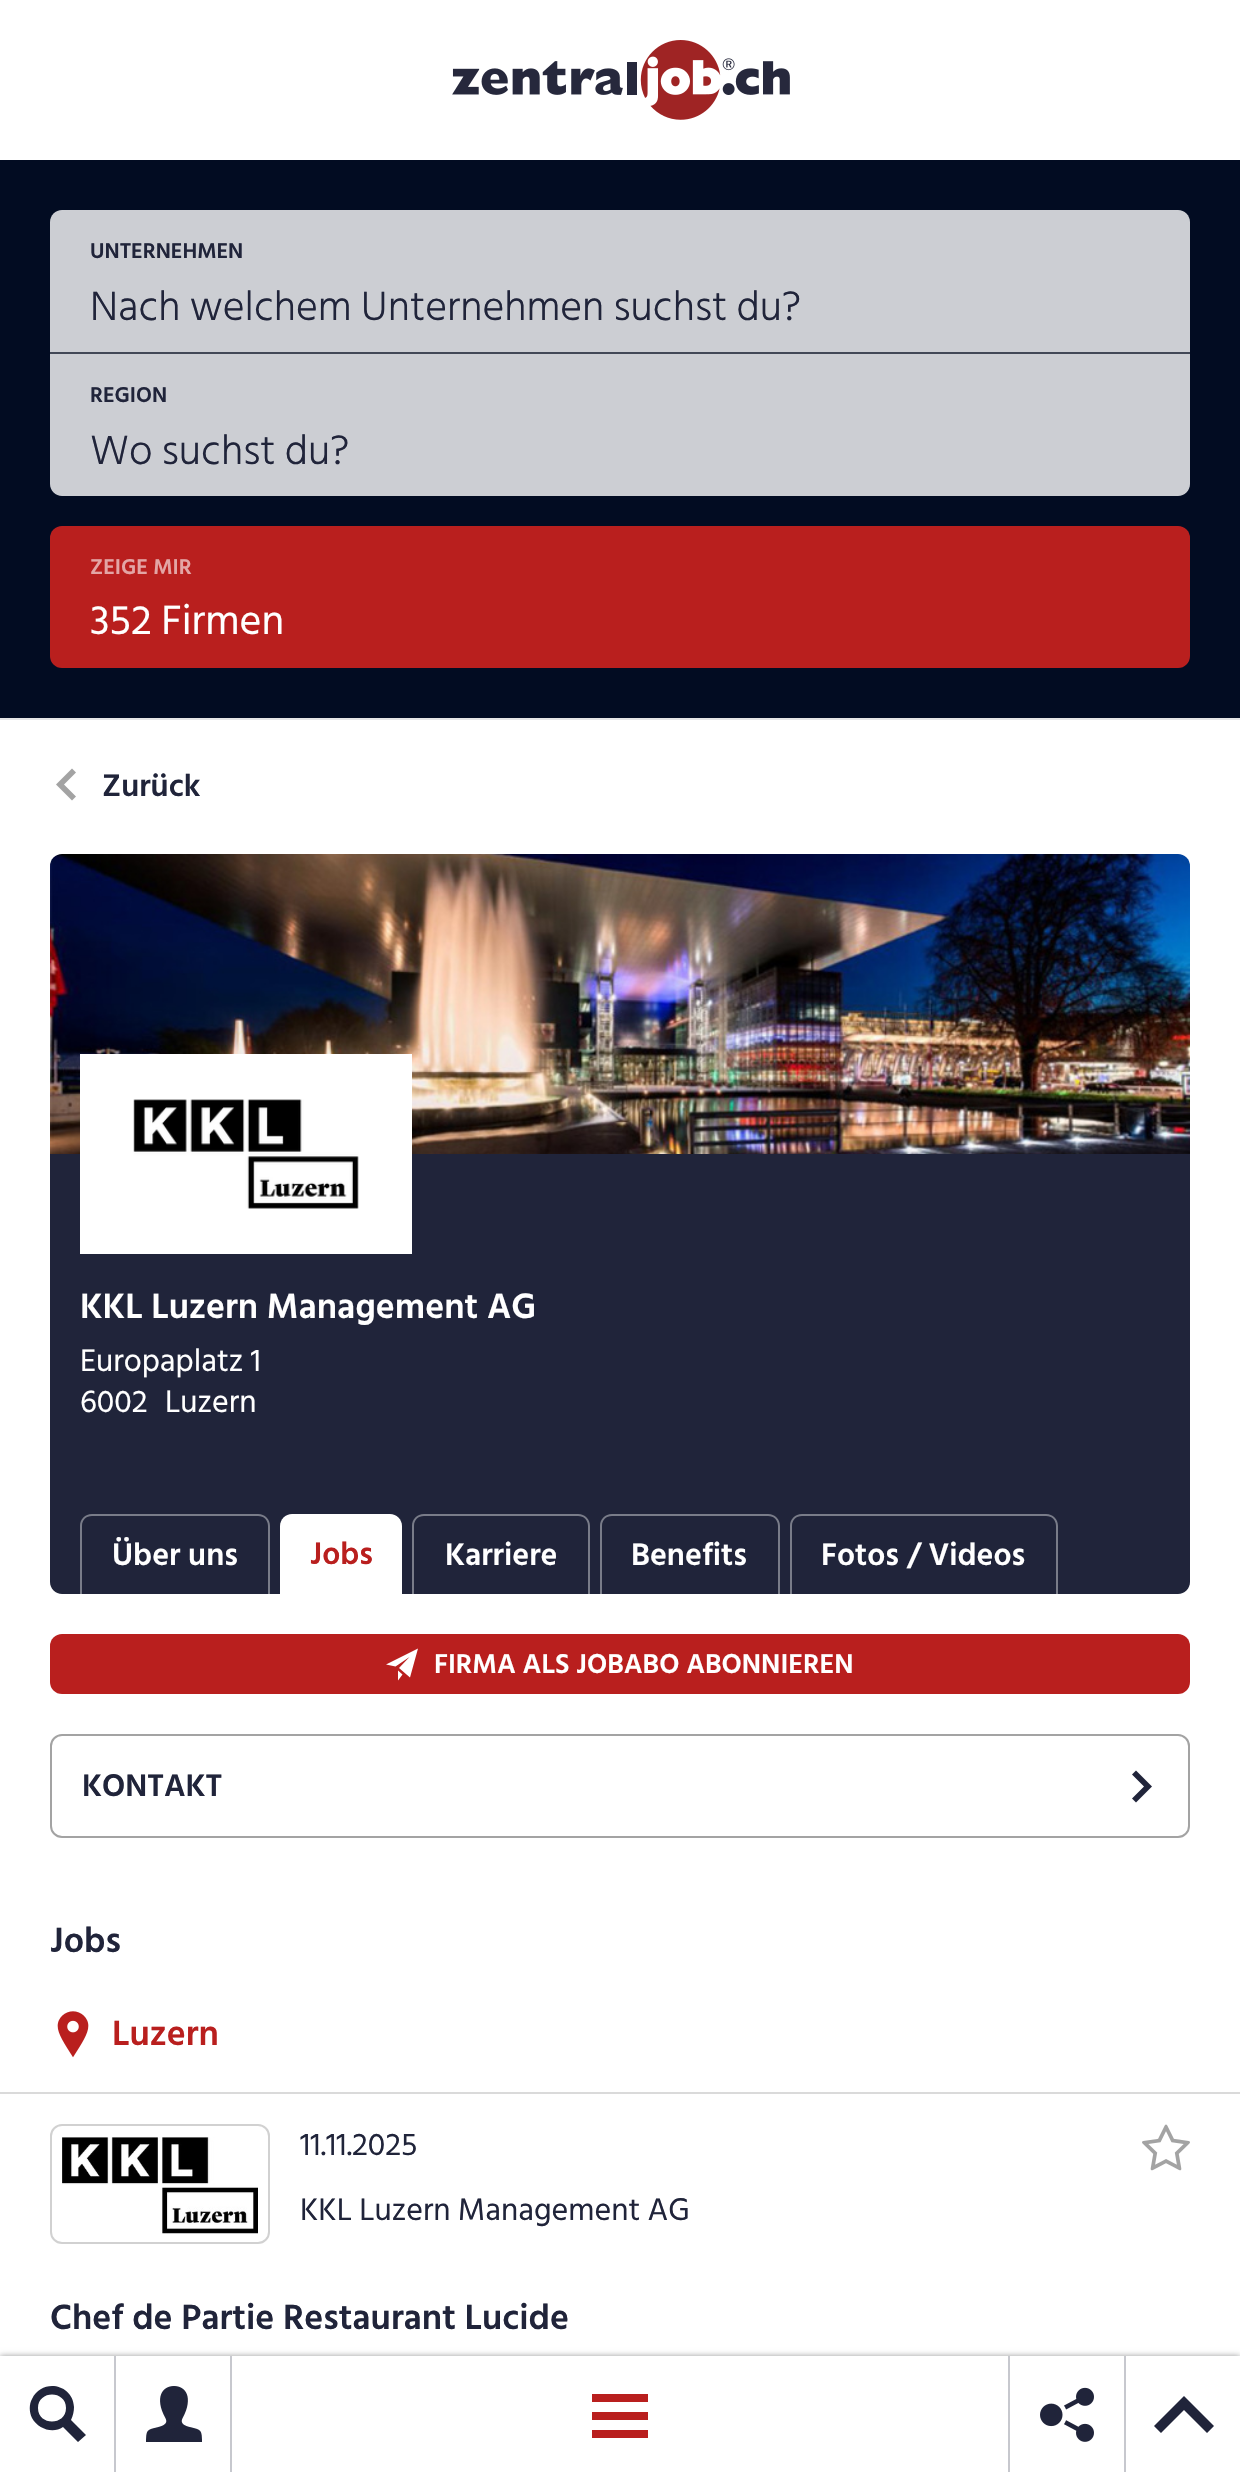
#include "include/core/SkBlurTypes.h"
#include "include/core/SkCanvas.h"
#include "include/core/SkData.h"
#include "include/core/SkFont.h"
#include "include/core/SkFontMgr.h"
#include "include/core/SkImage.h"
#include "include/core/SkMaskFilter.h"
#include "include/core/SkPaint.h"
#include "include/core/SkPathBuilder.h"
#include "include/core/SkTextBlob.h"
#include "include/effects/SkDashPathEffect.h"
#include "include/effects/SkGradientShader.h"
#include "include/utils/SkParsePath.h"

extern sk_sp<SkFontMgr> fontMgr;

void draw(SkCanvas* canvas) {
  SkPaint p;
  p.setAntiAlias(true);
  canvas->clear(SK_ColorWHITE);
  canvas->drawImageRect(SkImages::DeferredFromEncodedData(SkData::MakeFromFileName("images/1.png")), SkRect::MakeLTRB(452, 40, 790, 120), SkSamplingOptions());
  p.setColor(SkColorSetARGB(102, 0, 0, 0));
  p.setMaskFilter(SkMaskFilter::MakeBlur(kNormal_SkBlurStyle, 3));
  canvas->drawRect(SkRect::MakeLTRB(0, 2356, 1240, 2472), p);
  p.setMaskFilter(nullptr);
  p.setColor(SK_ColorWHITE);
  canvas->drawRect(SkRect::MakeLTRB(0, 2356, 1240, 2472), p);
  p.setColor(SkColorSetRGB(199, 200, 206));
  canvas->drawRect(SkRect::MakeLTRB(114, 2356, 116, 2472), p);
  p.setColor(SkColorSetRGB(32, 36, 58));
  canvas->drawPath(SkPathBuilder().moveTo(86, 2435).lineTo(71, 2420).cubicTo(73, 2416, 74, 2411, 74, 2407).cubicTo(73, 2384, 42, 2378, 32, 2399).cubicTo(29, 2404, 29, 2412, 32, 2418).cubicTo(38, 2429, 53, 2434, 63, 2427).lineTo(78, 2442).close().moveTo(38, 2408).cubicTo(38, 2390, 66, 2390, 66, 2408).cubicTo(66, 2426, 38, 2426, 38, 2408).close().detach(), p);
  p.setColor(SkColorSetRGB(199, 200, 206));
  canvas->drawRect(SkRect::MakeLTRB(230, 2356, 232, 2472), p);
  canvas->drawImageRect(SkImages::DeferredFromEncodedData(SkData::MakeFromFileName("images/2.png")), SkRect::MakeLTRB(146, 2386, 202, 2442), SkSamplingOptions());
  p.setColor(SkColorSetRGB(185, 31, 30));
  canvas->drawRect(SkRect::MakeLTRB(592, 2394, 648, 2402), p);
  canvas->drawRect(SkRect::MakeLTRB(592, 2412, 648, 2420), p);
  canvas->drawRect(SkRect::MakeLTRB(592, 2430, 648, 2438), p);
  p.setColor(SkColorSetRGB(199, 200, 206));
  canvas->drawRect(SkRect::MakeLTRB(1008, 2356, 1010, 2472), p);
  canvas->drawImageRect(SkImages::DeferredFromEncodedData(SkData::MakeFromFileName("images/3.png")), SkRect::MakeLTRB(1040, 2387, 1094, 2442), SkSamplingOptions());
  canvas->drawRect(SkRect::MakeLTRB(1124, 2356, 1126, 2472), p);
  p.setColor(SkColorSetRGB(32, 36, 58));
  canvas->drawPath(SkPathBuilder().moveTo(1154, 2426).lineTo(1161, 2433).lineTo(1184, 2410).lineTo(1207, 2433).lineTo(1214, 2426).lineTo(1184, 2396).close().detach(), p);
  p.setColor(SkColorSetRGB(2, 12, 34));
  canvas->drawRect(SkRect::MakeLTRB(0, 160, 1240, 718), p);
  p.setColor(SkColorSetRGB(230, 230, 230));
  canvas->drawRect(SkRect::MakeLTRB(0, 718, 1240, 720), p);
  p.setColor(SkColorSetRGB(66, 72, 86));
  canvas->drawRect(SkRect::MakeLTRB(50, 352, 1190, 354), p);
  p.setColor(SkColorSetRGB(204, 206, 211));
  canvas->drawPath(SkPathBuilder().moveTo(62, 210).lineTo(1178, 210).cubicTo(1184.5f, 210, 1190, 215.5f, 1190, 222).lineTo(1190, 352).lineTo(50, 352).lineTo(50, 222).cubicTo(50, 215.5f, 55.5f, 210, 62, 210).close().detach(), p);
  canvas->drawPath(SkPathBuilder().moveTo(50, 354).lineTo(1190, 354).lineTo(1190, 484).cubicTo(1190, 490.5f, 1184.5f, 496, 1178, 496).lineTo(62, 496).cubicTo(55.5f, 496, 50, 490.5f, 50, 484).close().detach(), p);
  p.setColor(SkColorSetRGB(185, 31, 30));
  canvas->drawRoundRect(SkRect::MakeLTRB(50, 526, 1190, 668), 12, 12, p);
  p.setColor(SkColorSetRGB(163, 163, 163));
  canvas->drawPath(SkPathBuilder().moveTo(76, 772.5f).lineTo(72, 768.5f).lineTo(56, 784.5f).lineTo(72, 800.5f).lineTo(76, 796.5f).lineTo(64, 784.5f).close().detach(), p);
  canvas->drawImageRect(SkImages::DeferredFromEncodedData(SkData::MakeFromFileName("images/4.png")), SkRect::MakeLTRB(50, 854, 1190, 1154), SkSamplingOptions());
  p.setColor(SkColorSetRGB(32, 36, 58));
  canvas->drawRect(SkRect::MakeLTRB(50, 1154, 1190, 1474), p);
  p.setColor(SK_ColorWHITE);
  canvas->drawRect(SkRect::MakeLTRB(80, 1054, 412, 1254), p);
  canvas->drawImageRect(SkImages::DeferredFromEncodedData(SkData::MakeFromFileName("images/5.png")), SkRect::MakeLTRB(133, 1099, 359, 1209), SkSamplingOptions());
  p.setColor(SkColorSetRGB(32, 36, 58));
  canvas->drawPath(SkPathBuilder().moveTo(50, 1474).lineTo(1190, 1474).lineTo(1190, 1582).cubicTo(1190, 1588.5f, 1184.5f, 1594, 1178, 1594).lineTo(62, 1594).cubicTo(55.5f, 1594, 50, 1588.5f, 50, 1582).close().detach(), p);
  p.setColor(SkColorSetRGB(121, 124, 137));
  canvas->drawPath(SkPathBuilder(SkPathFillType::kEvenOdd).moveTo(92, 1514).lineTo(258, 1514).cubicTo(265, 1514, 270, 1519, 270, 1526).lineTo(270, 1594).lineTo(80, 1594).lineTo(80, 1526).cubicTo(80, 1519, 85, 1514, 92, 1514).close().moveTo(92, 1516).lineTo(258, 1516).cubicTo(264, 1516, 268, 1520, 268, 1526).lineTo(268, 1594).lineTo(82, 1594).lineTo(82, 1526).cubicTo(82, 1520, 86, 1516, 92, 1516).close().detach(), p);
  p.setColor(SK_ColorWHITE);
  canvas->drawPath(SkPathBuilder().moveTo(292, 1514).lineTo(390, 1514).cubicTo(396.5f, 1514, 402, 1519.5f, 402, 1526).lineTo(402, 1594).lineTo(280, 1594).lineTo(280, 1526).cubicTo(280, 1519.5f, 285.5f, 1514, 292, 1514).close().detach(), p);
  p.setColor(SkColorSetRGB(121, 124, 137));
  canvas->drawPath(SkPathBuilder(SkPathFillType::kEvenOdd).moveTo(424, 1514).lineTo(578, 1514).cubicTo(585, 1514, 590, 1519, 590, 1526).lineTo(590, 1594).lineTo(412, 1594).lineTo(412, 1526).cubicTo(412, 1519, 417, 1514, 424, 1514).close().moveTo(424, 1516).lineTo(578, 1516).cubicTo(584, 1516, 588, 1520, 588, 1526).lineTo(588, 1594).lineTo(414, 1594).lineTo(414, 1526).cubicTo(414, 1520, 418, 1516, 424, 1516).close().detach(), p);
  canvas->drawPath(SkPathBuilder(SkPathFillType::kEvenOdd).moveTo(612, 1514).lineTo(768, 1514).cubicTo(775, 1514, 780, 1519, 780, 1526).lineTo(780, 1594).lineTo(600, 1594).lineTo(600, 1526).cubicTo(600, 1519, 605, 1514, 612, 1514).close().moveTo(612, 1516).lineTo(768, 1516).cubicTo(774, 1516, 778, 1520, 778, 1526).lineTo(778, 1594).lineTo(602, 1594).lineTo(602, 1526).cubicTo(602, 1520, 606, 1516, 612, 1516).close().detach(), p);
  canvas->drawPath(SkPathBuilder(SkPathFillType::kEvenOdd).moveTo(802, 1514).lineTo(1046, 1514).cubicTo(1053, 1514, 1058, 1519, 1058, 1526).lineTo(1058, 1594).lineTo(790, 1594).lineTo(790, 1526).cubicTo(790, 1519, 795, 1514, 802, 1514).close().moveTo(802, 1516).lineTo(1046, 1516).cubicTo(1052, 1516, 1056, 1520, 1056, 1526).lineTo(1056, 1594).lineTo(792, 1594).lineTo(792, 1526).cubicTo(792, 1520, 796, 1516, 802, 1516).close().detach(), p);
  p.setColor(SkColorSetRGB(185, 31, 30));
  canvas->drawRoundRect(SkRect::MakeLTRB(50, 1634, 1190, 1694), 12, 12, p);
  p.setColor(SK_ColorWHITE);
  canvas->drawPath(SkPathBuilder().moveTo(418, 1648.5f).lineTo(410, 1677.5f).lineTo(399, 1668).lineTo(409.5f, 1657).lineTo(395.5f, 1666.5f).lineTo(386, 1664.5f).close().moveTo(398, 1670.5f).lineTo(398, 1680.5f).lineTo(402.5f, 1674.5f).close().detach(), p);
  p.setStyle(SkPaint::kStroke_Style);
  p.setStrokeWidth(2);
  p.setColor(SkColorSetRGB(163, 163, 163));
  canvas->drawRoundRect(SkRect::MakeLTRB(51, 1735, 1189, 1837), 11, 11, p);
  p.setStyle(SkPaint::kFill_Style);
  p.setColor(SkColorSetRGB(32, 36, 58));
  canvas->drawPath(SkPathBuilder().moveTo(1132, 1774.5f).lineTo(1136, 1770.5f).lineTo(1152, 1786.5f).lineTo(1136, 1802.5f).lineTo(1132, 1798.5f).lineTo(1144, 1786.5f).close().detach(), p);
  canvas->drawImageRect(SkImages::DeferredFromEncodedData(SkData::MakeFromFileName("images/6.png")), SkRect::MakeLTRB(57, 2011, 89, 2058), SkSamplingOptions());
  p.setColor(SkColorSetRGB(218, 218, 218));
  canvas->drawRect(SkRect::MakeLTRB(0, 2092, 1240, 2094), p);
  p.setStyle(SkPaint::kStroke_Style);
  p.setColor(SkColorSetRGB(209, 209, 209));
  canvas->drawRoundRect(SkRect::MakeLTRB(51, 2125, 269, 2243), 11, 11, p);
  canvas->drawImageRect(SkImages::DeferredFromEncodedData(SkData::MakeFromFileName("images/7.png")), SkRect::MakeLTRB(62, 2137, 258, 2234), SkSamplingOptions());
  canvas->drawImageRect(SkImages::DeferredFromEncodedData(SkData::MakeFromFileName("images/8.png")), SkRect::MakeLTRB(1142, 2124, 1190, 2171), SkSamplingOptions());
  SkFont font1(fontMgr->matchFamilyStyle("Hind Siliguri", SkFontStyle(600, SkFontStyle::kNormal_Width, SkFontStyle::kUpright_Slant)), 22);
  font1.setSubpixel(true);
  p.setStyle(SkPaint::kFill_Style);
  p.setColor(SkColorSetRGB(32, 36, 58));
  canvas->drawString("UNTERNEHMEN", 90, 258, font1, p);
  SkFont font2(fontMgr->matchFamilyStyle("Hind Siliguri", SkFontStyle(300, SkFontStyle::kNormal_Width, SkFontStyle::kUpright_Slant)), 42);
  font2.setSubpixel(true);
  canvas->drawString("Nach welchem Unternehmen suchst du?", 90, 320, font2, p);
  canvas->drawString("REGION", 90, 402, font1, p);
  canvas->drawString("Wo suchst du?", 90, 464, font2, p);
  p.setColor(SkColorSetRGB(227, 165, 165));
  canvas->drawString("ZEIGE MIR", 90, 574, font1, p);
  SkFont font3(fontMgr->matchFamilyStyle("Hind Siliguri", SkFontStyle::Normal()), 42);
  font3.setSubpixel(true);
  p.setColor(SK_ColorWHITE);
  canvas->drawString("352 Firmen", 90, 634, font3, p);
  SkFont font4(fontMgr->matchFamilyStyle("Hind Siliguri", SkFontStyle(600, SkFontStyle::kNormal_Width, SkFontStyle::kUpright_Slant)), 32);
  font4.setSubpixel(true);
  p.setColor(SkColorSetRGB(32, 36, 58));
  canvas->drawString("Zurück", 102, 796, font4, p);
  SkFont font5(fontMgr->matchFamilyStyle("Hind Siliguri", SkFontStyle(600, SkFontStyle::kNormal_Width, SkFontStyle::kUpright_Slant)), 36);
  font5.setSubpixel(true);
  p.setColor(SK_ColorWHITE);
  canvas->drawString("KKL Luzern Management AG", 80, 1318, font5, p);
  SkFont font6(fontMgr->matchFamilyStyle("Hind Siliguri", SkFontStyle::Normal()), 32);
  font6.setSubpixel(true);
  canvas->drawString("Europaplatz 1", 80, 1371, font6, p);
  canvas->drawString("6002", 80, 1412, font6, p);
  canvas->drawString("Luzern", 165, 1412, font6, p);
  canvas->drawString("Über uns", 112, 1565, font4, p);
  p.setColor(SkColorSetRGB(185, 31, 30));
  canvas->drawString("Jobs", 310, 1564, font4, p);
  p.setColor(SK_ColorWHITE);
  canvas->drawString("Karriere", 445, 1565, font4, p);
  canvas->drawString("Benefits", 631, 1565, font4, p);
  canvas->drawString("Fotos / Videos", 821, 1565, font4, p);
  SkFont font7(fontMgr->matchFamilyStyle("Hind Siliguri", SkFontStyle(600, SkFontStyle::kNormal_Width, SkFontStyle::kUpright_Slant)), 28);
  font7.setSubpixel(true);
  canvas->drawString("FIRMA ALS JOBABO ABONNIEREN", 434, 1673, font7, p);
  p.setColor(SkColorSetRGB(32, 36, 58));
  canvas->drawString("KONTAKT", 82, 1796, font4, p);
  canvas->drawString("Jobs", 50, 1952, font5, p);
  p.setColor(SkColorSetRGB(185, 31, 30));
  canvas->drawString("Luzern", 112, 2045, font5, p);
  p.setColor(SkColorSetRGB(32, 36, 58));
  canvas->drawString("11.11.2025", 300, 2155, font6, p);
  canvas->drawString("KKL Luzern Management AG", 300, 2220, font6, p);
  canvas->drawString("Chef de Partie Restaurant Lucide", 50, 2329, font5, p);
}
